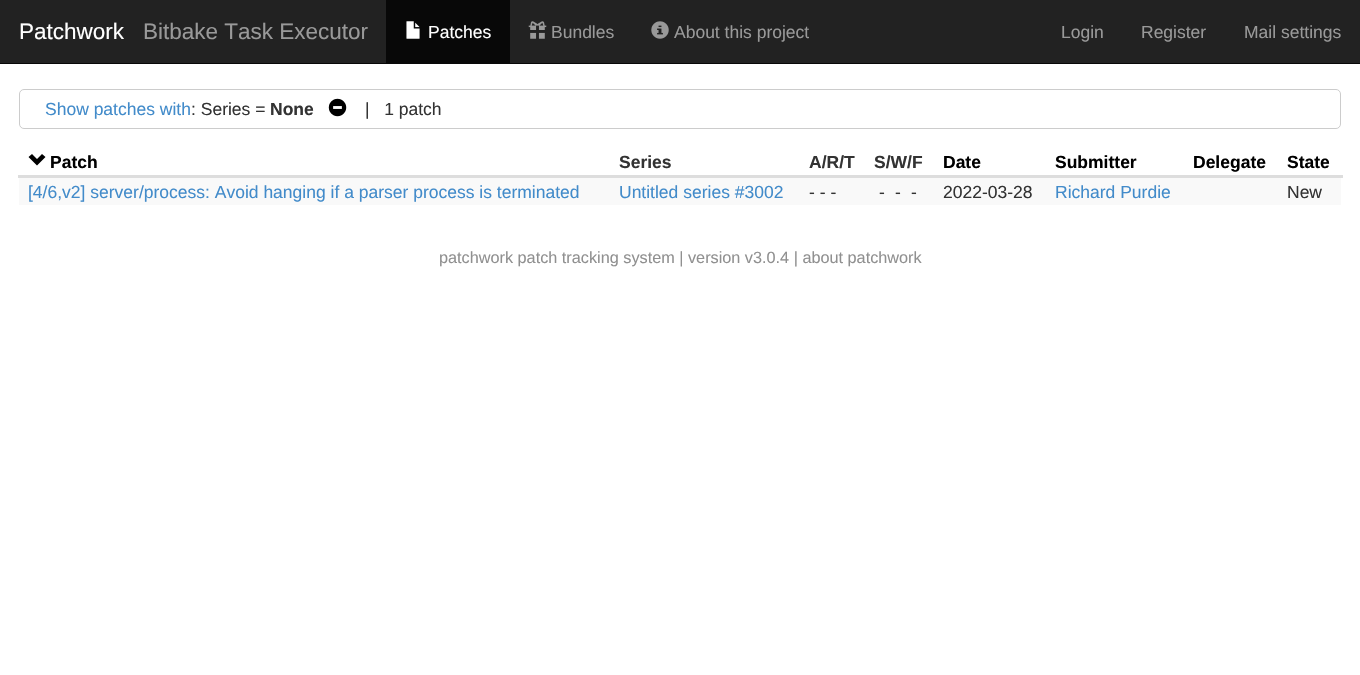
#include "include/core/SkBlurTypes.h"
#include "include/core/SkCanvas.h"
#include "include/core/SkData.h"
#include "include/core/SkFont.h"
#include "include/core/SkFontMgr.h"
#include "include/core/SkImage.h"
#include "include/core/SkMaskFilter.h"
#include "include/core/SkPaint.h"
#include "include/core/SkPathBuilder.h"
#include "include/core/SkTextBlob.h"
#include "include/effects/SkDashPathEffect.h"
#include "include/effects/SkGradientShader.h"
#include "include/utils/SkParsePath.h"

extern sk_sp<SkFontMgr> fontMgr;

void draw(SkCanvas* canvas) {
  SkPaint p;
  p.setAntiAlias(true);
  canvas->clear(SK_ColorWHITE);
  p.setColor(SkColorSetRGB(34, 34, 34));
  canvas->drawRect(SkRect::MakeLTRB(0, 0, 1360, 63), p);
  p.setColor(SkColorSetRGB(8, 8, 8));
  canvas->drawRect(SkRect::MakeLTRB(0, 63, 1360, 64), p);
  canvas->drawRect(SkRect::MakeLTRB(386, 0, 510, 63), p);
  canvas->drawImageRect(SkImages::DeferredFromEncodedData(SkData::MakeFromFileName("images/1.png")), SkRect::MakeLTRB(406, 21, 420, 39), SkSamplingOptions());
  canvas->drawImageRect(SkImages::DeferredFromEncodedData(SkData::MakeFromFileName("images/2.png")), SkRect::MakeLTRB(528, 21, 547, 39), SkSamplingOptions());
  canvas->drawImageRect(SkImages::DeferredFromEncodedData(SkData::MakeFromFileName("images/3.png")), SkRect::MakeLTRB(651, 21, 669, 39), SkSamplingOptions());
  p.setStyle(SkPaint::kStroke_Style);
  p.setStrokeWidth(1);
  p.setColor(SkColorSetRGB(204, 204, 204));
  canvas->drawRoundRect(SkRect::MakeLTRB(19.5f, 89.5f, 1340.5f, 128.5f), 4.5f, 4.5f, p);
  canvas->drawImageRect(SkImages::DeferredFromEncodedData(SkData::MakeFromFileName("images/4.png")), SkRect::MakeLTRB(328, 98, 347, 117), SkSamplingOptions());
  p.setStyle(SkPaint::kFill_Style);
  p.setColor(SK_ColorBLACK);
  canvas->drawPath(SkPathBuilder().moveTo(28.5f, 157).lineTo(37, 165.5f).lineTo(45.5f, 157).lineTo(42, 154).lineTo(37, 159).lineTo(32, 154).close().detach(), p);
  p.setColor(SkColorSetRGB(221, 221, 221));
  canvas->drawRect(SkRect::MakeLTRB(18, 175, 1343, 178), p);
  p.setColor(SkColorSetRGB(249, 249, 249));
  canvas->drawRect(SkRect::MakeLTRB(19, 178, 1341, 205), p);
  SkFont font1(fontMgr->matchFamilyStyle("Liberation Sans", SkFontStyle::Normal()), 22.5f);
  font1.setSubpixel(true);
  p.setColor(SK_ColorWHITE);
  canvas->drawString("Patchwork", 19, 39, font1, p);
  p.setColor(SkColorSetRGB(153, 153, 153));
  canvas->drawString("Bitbake Task Executor", 143, 39, font1, p);
  SkFont font2(fontMgr->matchFamilyStyle("Liberation Sans", SkFontStyle::Normal()), 17.5f);
  font2.setSubpixel(true);
  p.setColor(SK_ColorWHITE);
  canvas->drawString("Patches", 428, 38, font2, p);
  p.setColor(SkColorSetRGB(153, 153, 153));
  canvas->drawString("Bundles", 551, 38, font2, p);
  canvas->drawString("About this project", 674, 38, font2, p);
  canvas->drawString("Login", 1061, 38, font2, p);
  canvas->drawString("Register", 1141, 38, font2, p);
  canvas->drawString("Mail settings", 1244, 38, font2, p);
  p.setColor(SkColorSetRGB(66, 139, 202));
  canvas->drawString("Show patches with", 45, 115, font2, p);
  p.setColor(SkColorSetRGB(51, 51, 51));
  canvas->drawString(": Series =", 191, 115, font2, p);
  SkFont font3(fontMgr->matchFamilyStyle("Liberation Sans", SkFontStyle::Bold()), 17.5f);
  font3.setSubpixel(true);
  canvas->drawString("None", 270, 115, font3, p);
  canvas->drawString("|   1 patch", 365, 115, font2, p);
  p.setColor(SK_ColorBLACK);
  canvas->drawString("Patch", 50, 168, font3, p);
  p.setColor(SkColorSetRGB(51, 51, 51));
  canvas->drawString("Series", 619, 168, font3, p);
  canvas->drawString("A/R/T", 809, 168, font3, p);
  canvas->drawString("S/W/F", 874, 168, font3, p);
  p.setColor(SK_ColorBLACK);
  canvas->drawString("Date", 943, 168, font3, p);
  canvas->drawString("Submitter", 1055, 168, font3, p);
  canvas->drawString("Delegate", 1193, 168, font3, p);
  canvas->drawString("State", 1287, 168, font3, p);
  p.setColor(SkColorSetRGB(66, 139, 202));
  canvas->drawString("[4/6,v2] server/process: Avoid hanging if a parser process is terminated", 28, 198, font2, p);
  canvas->drawString("Untitled series #3002", 619, 198, font2, p);
  p.setColor(SkColorSetRGB(51, 51, 51));
  canvas->drawString("- - -", 809, 198, font2, p);
  canvas->drawString("-", 879, 198, font2, p);
  canvas->drawString("-", 895, 198, font2, p);
  canvas->drawString("-", 911, 198, font2, p);
  canvas->drawString("2022-03-28", 943, 198, font2, p);
  p.setColor(SkColorSetRGB(66, 139, 202));
  canvas->drawString("Richard Purdie", 1055, 198, font2, p);
  p.setColor(SkColorSetRGB(51, 51, 51));
  canvas->drawString("New", 1287, 198, font2, p);
  SkFont font4(fontMgr->matchFamilyStyle("Liberation Sans", SkFontStyle::Normal()), 16.25f);
  font4.setSubpixel(true);
  p.setColor(SkColorSetRGB(144, 144, 144));
  canvas->drawString("patchwork patch tracking system | version v3.0.4 | about patchwork", 439, 263, font4, p);
}
